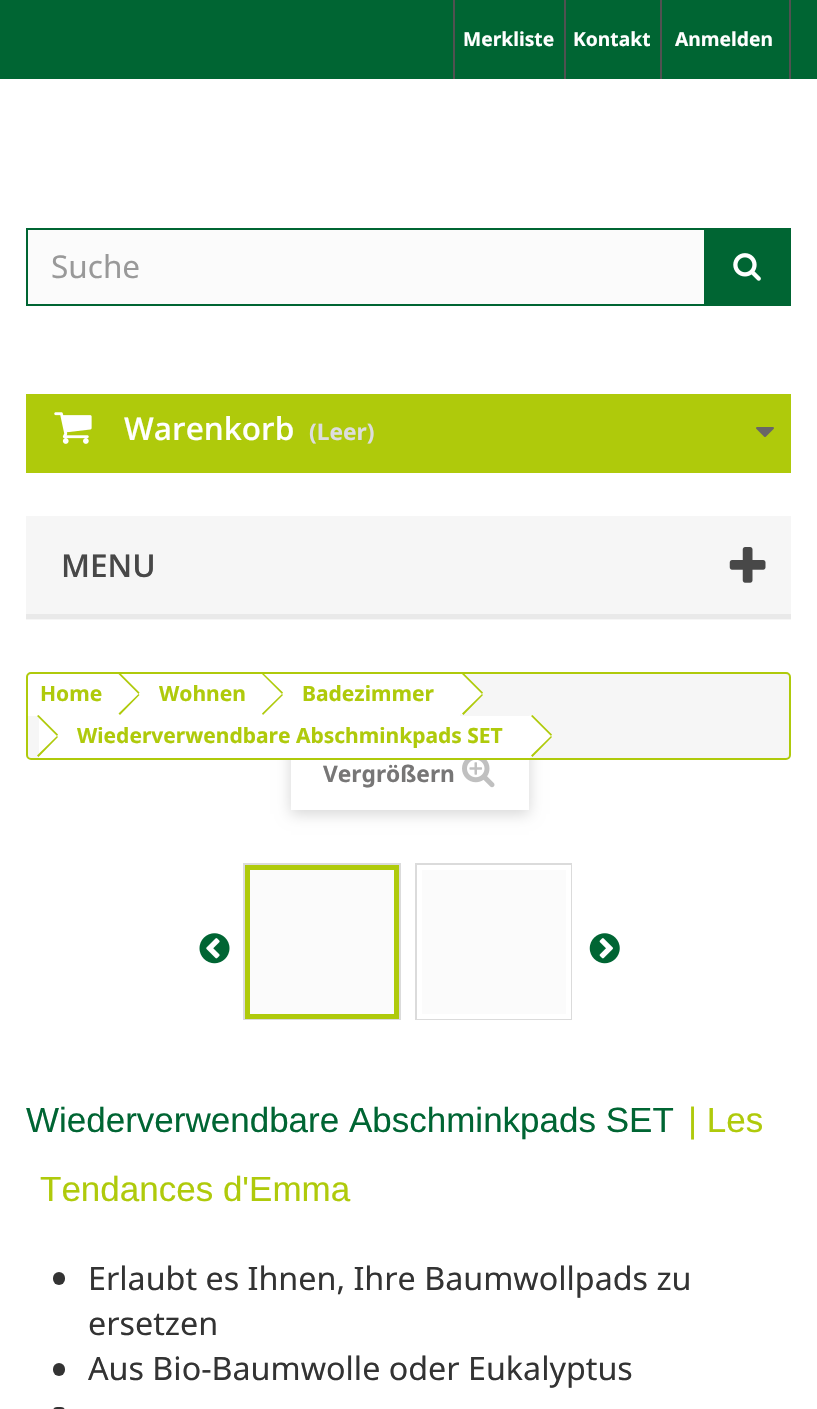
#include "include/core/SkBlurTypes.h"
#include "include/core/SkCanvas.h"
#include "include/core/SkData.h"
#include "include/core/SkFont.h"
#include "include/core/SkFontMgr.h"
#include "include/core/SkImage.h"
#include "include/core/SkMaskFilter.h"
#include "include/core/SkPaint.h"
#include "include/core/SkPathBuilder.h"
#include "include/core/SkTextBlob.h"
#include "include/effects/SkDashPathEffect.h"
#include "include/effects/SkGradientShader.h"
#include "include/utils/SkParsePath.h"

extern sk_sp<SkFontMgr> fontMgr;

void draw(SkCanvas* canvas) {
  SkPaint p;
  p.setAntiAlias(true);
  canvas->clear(SK_ColorWHITE);
  p.setColor(SkColorSetRGB(0, 101, 51));
  canvas->drawRect(SkRect::MakeLTRB(0, 0, 817, 79), p);
  p.setColor(SkColorSetRGB(81, 81, 81));
  canvas->drawRect(SkRect::MakeLTRB(453, 0, 455, 79), p);
  canvas->drawRect(SkRect::MakeLTRB(564, 0, 566, 79), p);
  canvas->drawRect(SkRect::MakeLTRB(789, 0, 791, 79), p);
  canvas->drawRect(SkRect::MakeLTRB(660, 0, 662, 79), p);
  p.setColor(SkColorSetRGB(251, 251, 251));
  canvas->drawRect(SkRect::MakeLTRB(28, 230, 704, 304), p);
  p.setStyle(SkPaint::kStroke_Style);
  p.setStrokeWidth(2);
  p.setColor(SkColorSetRGB(0, 101, 51));
  canvas->drawRect(SkRect::MakeLTRB(27, 229, 790, 305), p);
  p.setStyle(SkPaint::kFill_Style);
  canvas->drawRect(SkRect::MakeLTRB(704, 230, 789, 304), p);
  canvas->drawImageRect(SkImages::DeferredFromEncodedData(SkData::MakeFromFileName("images/1.png")), SkRect::MakeLTRB(733, 253, 761, 281), SkSamplingOptions());
  p.setColor(SkColorSetRGB(175, 202, 11));
  canvas->drawRect(SkRect::MakeLTRB(26, 394, 791, 473), p);
  canvas->drawImageRect(SkImages::DeferredFromEncodedData(SkData::MakeFromFileName("images/2.png")), SkRect::MakeLTRB(54, 412, 92, 444), SkSamplingOptions());
  canvas->drawImageRect(SkImages::DeferredFromEncodedData(SkData::MakeFromFileName("images/3.png")), SkRect::MakeLTRB(756, 427, 774, 437), SkSamplingOptions());
  p.setColor(SkColorSetRGB(246, 246, 246));
  canvas->drawRect(SkRect::MakeLTRB(26, 516, 791, 620), p);
  p.setColor(SkColorSetRGB(233, 233, 233));
  canvas->drawRect(SkRect::MakeLTRB(26, 614, 791, 619), p);
  canvas->drawImageRect(SkImages::DeferredFromEncodedData(SkData::MakeFromFileName("images/4.png")), SkRect::MakeLTRB(729, 547, 766, 583), SkSamplingOptions());
  canvas->save();
  canvas->clipPath(SkPathBuilder(SkPathFillType::kEvenOdd).moveTo(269, 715).lineTo(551, 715).lineTo(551, 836).lineTo(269, 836).close().moveTo(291, 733).lineTo(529, 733).lineTo(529, 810).lineTo(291, 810).close().detach(), true);
  p.setColor(SkColorSetARGB(41, 0, 0, 0));
  p.setMaskFilter(SkMaskFilter::MakeBlur(kNormal_SkBlurStyle, 7));
  canvas->drawRect(SkRect::MakeLTRB(291, 737, 529, 814), p);
  p.setMaskFilter(nullptr);
  canvas->restore();
  p.setColor(SkColorSetRGB(246, 246, 246));
  canvas->drawRoundRect(SkRect::MakeLTRB(27, 673, 790, 759), 4, 4, p);
  p.setStyle(SkPaint::kStroke_Style);
  p.setColor(SkColorSetRGB(175, 202, 11));
  canvas->drawRoundRect(SkRect::MakeLTRB(27, 673, 790, 759), 4, 4, p);
  p.setStyle(SkPaint::kFill_Style);
  p.setColor(SK_ColorWHITE);
  canvas->drawPath(SkPathBuilder().moveTo(32, 674).lineTo(130, 674).lineTo(130, 716).lineTo(28, 716).lineTo(28, 678).cubicTo(28, 676, 30, 674, 32, 674).close().detach(), p);
  canvas->drawPath(SkPathBuilder().moveTo(133, 674).lineTo(128, 674).lineTo(111, 691).cubicTo(109, 693, 109, 695, 111, 696).lineTo(128, 714).cubicTo(129, 715, 132, 715, 133, 714).lineTo(150, 696).cubicTo(152, 695, 152, 693, 150, 691).close().detach(), p);
  canvas->drawRect(SkRect::MakeLTRB(130, 674, 264, 716), p);
  p.setColor(SkColorSetRGB(175, 202, 11));
  canvas->drawPath(SkPathBuilder().moveTo(121, 674).lineTo(139.5f, 692.5f).lineTo(138.5f, 694).lineTo(118.5f, 674).close().moveTo(138.5f, 694).lineTo(139.5f, 695).lineTo(120, 715).lineTo(118.5f, 713.5f).close().detach(), p);
  p.setColor(SK_ColorWHITE);
  canvas->drawPath(SkPathBuilder().moveTo(276, 674).lineTo(271, 674).lineTo(254, 691).cubicTo(253, 693, 253, 695, 254, 696).lineTo(271, 714).cubicTo(273, 715, 275, 715, 276, 714).lineTo(294, 696).cubicTo(295, 695, 295, 693, 294, 691).close().detach(), p);
  canvas->drawRect(SkRect::MakeLTRB(264, 674, 460, 716), p);
  p.setColor(SkColorSetRGB(175, 202, 11));
  canvas->drawPath(SkPathBuilder().moveTo(264, 674).lineTo(283, 692.5f).lineTo(282, 694).lineTo(262, 674).close().moveTo(282, 694).lineTo(283, 695).lineTo(263, 715).lineTo(262, 713.5f).close().detach(), p);
  p.setColor(SK_ColorWHITE);
  canvas->drawPath(SkPathBuilder().moveTo(465, 674).lineTo(460, 674).lineTo(442, 691).cubicTo(441, 693, 441, 695, 442, 696).lineTo(460, 714).cubicTo(461, 715, 463, 715, 465, 714).lineTo(482, 696).cubicTo(483, 695, 483, 693, 482, 691).close().detach(), p);
  p.setColor(SkColorSetRGB(175, 202, 11));
  canvas->drawPath(SkPathBuilder().moveTo(464.5f, 674).lineTo(483, 692.5f).lineTo(482, 694).lineTo(462, 674).close().moveTo(482, 694).lineTo(483, 695).lineTo(463.5f, 715).lineTo(462, 713.5f).close().detach(), p);
  p.setColor(SK_ColorWHITE);
  canvas->drawRect(SkRect::MakeLTRB(39, 716, 530, 758), p);
  p.setColor(SkColorSetRGB(175, 202, 11));
  canvas->drawPath(SkPathBuilder().moveTo(38.5f, 715).lineTo(58, 734.5f).lineTo(57, 736).lineTo(37, 716).close().moveTo(57, 736).lineTo(58, 737).lineTo(38.5f, 757).lineTo(37, 755.5f).close().detach(), p);
  p.setColor(SK_ColorWHITE);
  canvas->drawPath(SkPathBuilder().moveTo(534, 716).lineTo(551, 733).cubicTo(552, 735, 552, 737, 551, 738).lineTo(534, 756).cubicTo(532, 757, 530, 757, 529, 756).lineTo(511, 738).cubicTo(510, 737, 510, 735, 511, 733).lineTo(529, 716).cubicTo(530, 715, 532, 715, 534, 716).close().detach(), p);
  p.setColor(SkColorSetRGB(175, 202, 11));
  canvas->drawPath(SkPathBuilder().moveTo(532.5f, 715).lineTo(552, 734.5f).lineTo(551, 736).lineTo(531, 716).close().moveTo(551, 736).lineTo(552, 737).lineTo(532.5f, 757).lineTo(531, 755.5f).close().detach(), p);
  p.setColor(SkColorSetARGB(128, 255, 255, 255));
  canvas->drawRect(SkRect::MakeLTRB(528, 760, 529, 810), p);
  canvas->drawImageRect(SkImages::DeferredFromEncodedData(SkData::MakeFromFileName("images/5.png")), SkRect::MakeLTRB(462, 760, 495, 788), SkSamplingOptions());
  canvas->drawImageRect(SkImages::DeferredFromEncodedData(SkData::MakeFromFileName("images/6.png")), SkRect::MakeLTRB(199, 933, 230, 964), SkSamplingOptions());
  p.setStyle(SkPaint::kStroke_Style);
  p.setColor(SkColorSetRGB(219, 219, 219));
  canvas->drawRect(SkRect::MakeLTRB(244, 864, 400, 1019), p);
  p.setStyle(SkPaint::kFill_Style);
  p.setColor(SkColorSetRGB(251, 251, 251));
  canvas->drawRect(SkRect::MakeLTRB(247.5f, 867.5f, 396.5f, 1016.5f), p);
  p.setStyle(SkPaint::kStroke_Style);
  p.setStrokeWidth(5);
  p.setColor(SkColorSetRGB(175, 202, 11));
  canvas->drawRect(SkRect::MakeLTRB(247.5f, 867.5f, 396.5f, 1016.5f), p);
  p.setStrokeWidth(2);
  p.setColor(SkColorSetRGB(219, 219, 219));
  canvas->drawRect(SkRect::MakeLTRB(416, 864, 571, 1019), p);
  p.setStyle(SkPaint::kFill_Style);
  p.setColor(SkColorSetRGB(251, 251, 251));
  canvas->drawRect(SkRect::MakeLTRB(419.5f, 867.5f, 568.5f, 1016.5f), p);
  p.setStyle(SkPaint::kStroke_Style);
  p.setStrokeWidth(5);
  p.setColor(SK_ColorWHITE);
  canvas->drawRect(SkRect::MakeLTRB(419.5f, 867.5f, 568.5f, 1016.5f), p);
  canvas->drawImageRect(SkImages::DeferredFromEncodedData(SkData::MakeFromFileName("images/7.png")), SkRect::MakeLTRB(589, 933, 620, 964), SkSamplingOptions());
  p.setStyle(SkPaint::kFill_Style);
  p.setColor(SkColorSetRGB(51, 51, 51));
  canvas->drawRoundRect(SkRect::MakeLTRB(53, 1272, 65, 1285), 6, 6, p);
  canvas->drawRoundRect(SkRect::MakeLTRB(53, 1363, 65, 1376), 6, 6, p);
  canvas->drawRoundRect(SkRect::MakeLTRB(53, 1407, 65, 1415), 6, 6, p);
  SkFont font1(fontMgr->matchFamilyStyle("Noto Sans", SkFontStyle::Bold()), 19.25f);
  font1.setSubpixel(true);
  p.setColor(SK_ColorWHITE);
  canvas->drawString("Merkliste", 463, 46, font1, p);
  canvas->drawString("Kontakt", 573, 46, font1, p);
  canvas->drawString("Anmelden", 675, 46, font1, p);
  SkFont font2(fontMgr->matchFamilyStyle("Noto Sans", SkFontStyle::Normal()), 31.5f);
  font2.setSubpixel(true);
  p.setColor(SkColorSetRGB(153, 153, 153));
  canvas->drawString("Suche", 51, 278, font2, p);
  SkFont font3(fontMgr->matchFamilyStyle("Open Sans", SkFontStyle(600, SkFontStyle::kNormal_Width, SkFontStyle::kUpright_Slant)), 31.5f);
  font3.setSubpixel(true);
  p.setColor(SK_ColorWHITE);
  canvas->drawString("Warenkorb", 124, 440, font3, p);
  SkFont font4(fontMgr->matchFamilyStyle("Noto Sans", SkFontStyle::Bold()), 22.75f);
  font4.setSubpixel(true);
  p.setColor(SkColorSetRGB(221, 221, 221));
  canvas->drawString("(Leer)", 309, 440, font4, p);
  p.setColor(SkColorSetRGB(72, 72, 72));
  canvas->drawString("MENU", 61, 577, font3, p);
  SkFont font5(fontMgr->matchFamilyStyle("Noto Sans", SkFontStyle::Bold()), 21);
  font5.setSubpixel(true);
  p.setColor(SkColorSetRGB(175, 202, 11));
  canvas->drawString("Home", 40, 701, font5, p);
  canvas->drawString("Wohnen", 159, 701, font5, p);
  canvas->drawString("Badezimmer", 302, 701, font5, p);
  canvas->drawString("Wiederverwendbare Abschminkpads SET", 77, 743, font5, p);
  p.setColor(SkColorSetRGB(119, 118, 118));
  canvas->drawString("Vergrößern", 323, 782, font4, p);
  SkFont font6(fontMgr->matchFamilyStyle("Liberation Sans", SkFontStyle::Normal()), 35);
  font6.setSubpixel(true);
  p.setColor(SkColorSetRGB(0, 101, 51));
  canvas->drawString("Wiederverwendbare Abschminkpads SET", 26, 1132, font6, p);
  p.setColor(SkColorSetRGB(175, 202, 11));
  canvas->drawString("| Les", 688, 1132, font6, p);
  canvas->drawString("Tendances d'Emma", 40, 1201, font6, p);
  SkFont font7(fontMgr->matchFamilyStyle("Noto Sans", SkFontStyle::Normal()), 32.25f);
  font7.setSubpixel(true);
  p.setColor(SkColorSetRGB(51, 51, 51));
  canvas->drawString("Erlaubt es Ihnen, Ihre Baumwollpads zu", 88, 1290, font7, p);
  canvas->drawString("ersetzen", 88, 1335, font7, p);
  canvas->drawString("Aus Bio-Baumwolle oder Eukalyptus", 88, 1380, font7, p);
}
